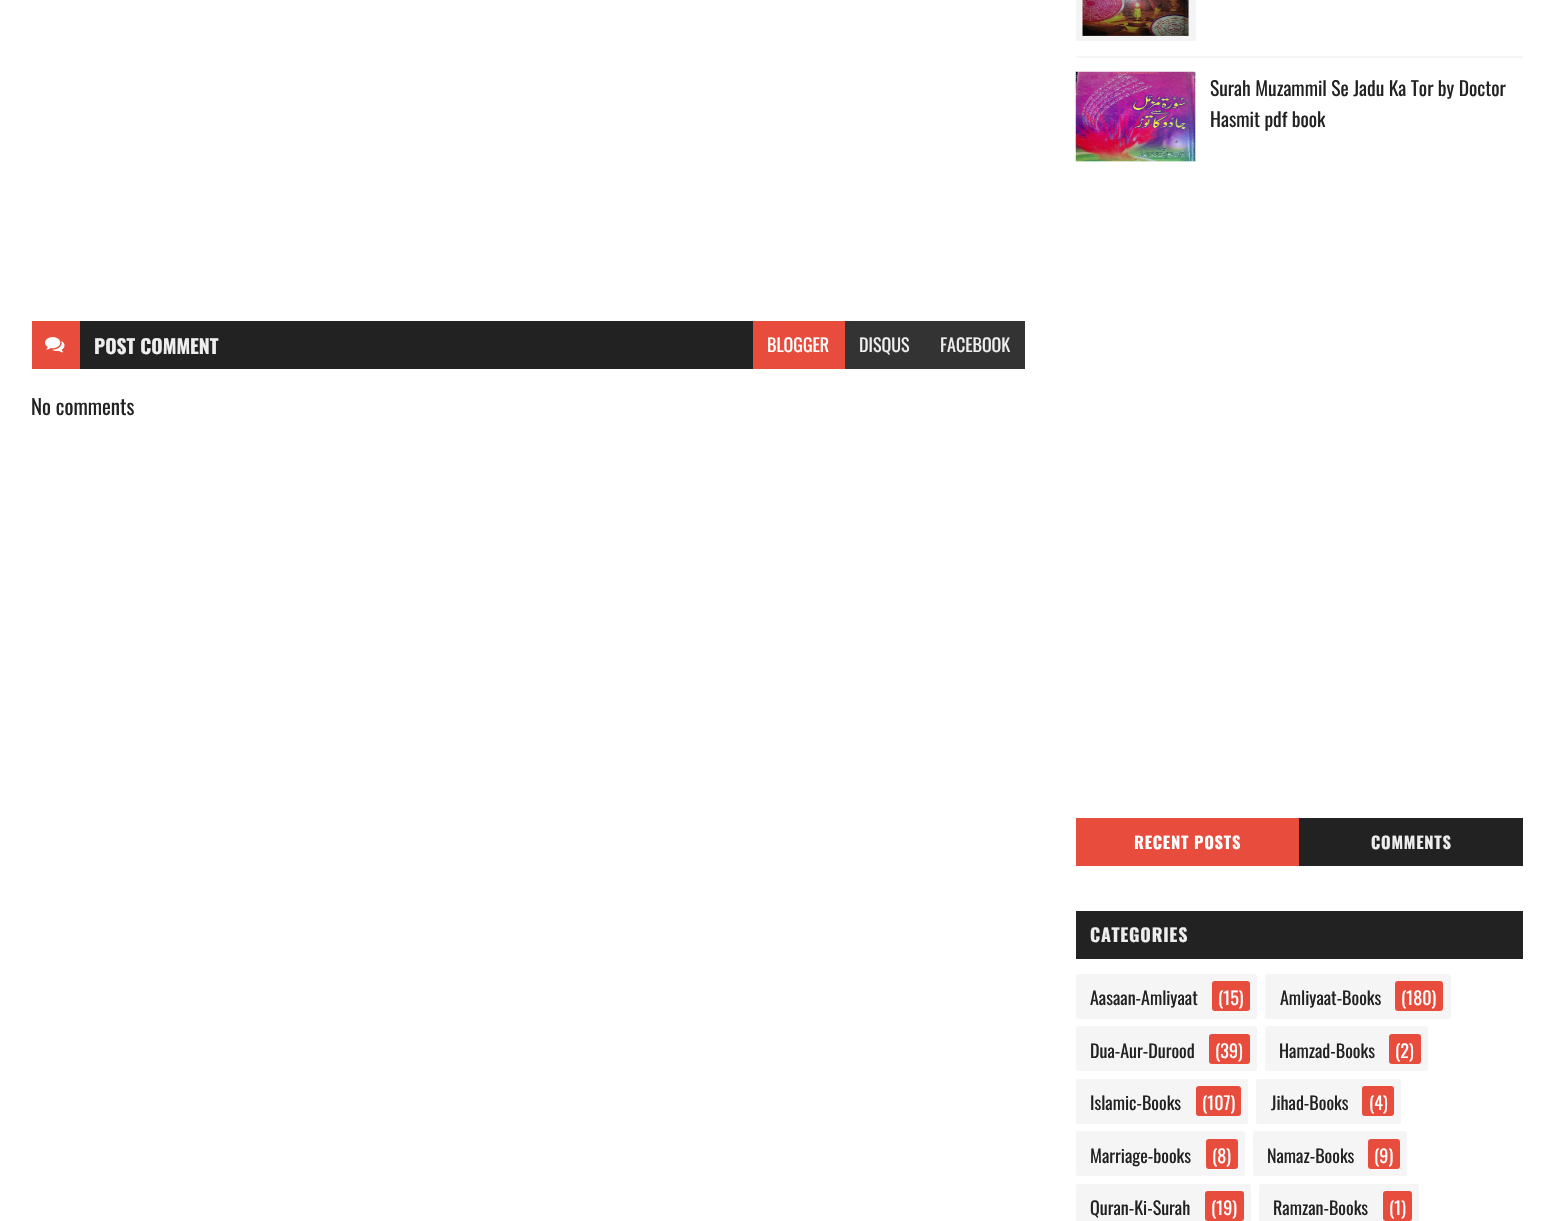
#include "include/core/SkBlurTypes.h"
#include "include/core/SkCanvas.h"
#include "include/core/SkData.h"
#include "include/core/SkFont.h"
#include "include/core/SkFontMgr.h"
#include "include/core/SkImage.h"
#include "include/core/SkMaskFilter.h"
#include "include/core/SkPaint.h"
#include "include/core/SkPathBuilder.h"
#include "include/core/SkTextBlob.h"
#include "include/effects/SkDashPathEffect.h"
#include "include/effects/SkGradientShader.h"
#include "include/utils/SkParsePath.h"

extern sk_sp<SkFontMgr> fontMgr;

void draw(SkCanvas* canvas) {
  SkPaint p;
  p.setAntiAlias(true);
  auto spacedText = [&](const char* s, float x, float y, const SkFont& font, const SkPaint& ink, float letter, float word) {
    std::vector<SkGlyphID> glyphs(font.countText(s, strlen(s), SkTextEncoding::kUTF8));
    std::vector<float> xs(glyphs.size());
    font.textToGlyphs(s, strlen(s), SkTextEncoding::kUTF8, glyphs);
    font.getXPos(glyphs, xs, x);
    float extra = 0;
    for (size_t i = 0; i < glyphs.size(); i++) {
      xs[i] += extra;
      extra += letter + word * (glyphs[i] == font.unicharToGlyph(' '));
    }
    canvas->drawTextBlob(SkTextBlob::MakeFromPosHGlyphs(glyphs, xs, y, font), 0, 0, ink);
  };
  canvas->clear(SK_ColorWHITE);
  p.setColor(SkColorSetRGB(34, 34, 34));
  canvas->drawRect(SkRect::MakeLTRB(80, 321, 753, 369), p);
  p.setColor(SkColorSetRGB(231, 76, 60));
  canvas->drawRect(SkRect::MakeLTRB(32, 321, 80, 369), p);
  canvas->drawImageRect(SkImages::DeferredFromEncodedData(SkData::MakeFromFileName("images/1.png")), SkRect::MakeLTRB(45, 337, 65, 353), SkSamplingOptions());
  canvas->drawRect(SkRect::MakeLTRB(753, 321, 845, 369), p);
  p.setColor(SkColorSetRGB(51, 51, 51));
  canvas->drawRect(SkRect::MakeLTRB(845, 321, 1025, 369), p);
  canvas->drawImageRect(SkImages::DeferredFromEncodedData(SkData::MakeFromFileName("images/2.png")), SkRect::MakeLTRB(1082, 0, 1189, 36), SkSamplingOptions());
  p.setColor(SkColorSetARGB(13, 40, 35, 40));
  canvas->drawRect(SkRect::MakeLTRB(1076, 0, 1196, 41), p);
  p.setColor(SkColorSetRGB(245, 245, 245));
  canvas->drawRect(SkRect::MakeLTRB(1076, 56, 1523, 58), p);
  canvas->drawImageRect(SkImages::DeferredFromEncodedData(SkData::MakeFromFileName("images/3.png")), SkRect::MakeLTRB(1075, 71, 1196, 162), SkSamplingOptions());
  p.setColor(SkColorSetARGB(13, 40, 35, 40));
  canvas->drawRect(SkRect::MakeLTRB(1076, 72, 1196, 162), p);
  p.setColor(SkColorSetRGB(231, 76, 60));
  canvas->drawRect(SkRect::MakeLTRB(1076, 818, 1299, 866), p);
  p.setColor(SkColorSetRGB(34, 34, 34));
  canvas->drawRect(SkRect::MakeLTRB(1299, 818, 1523, 866), p);
  canvas->drawRect(SkRect::MakeLTRB(1076, 911, 1523, 959), p);
  p.setColor(SkColorSetRGB(245, 245, 245));
  canvas->drawRoundRect(SkRect::MakeLTRB(1076, 974, 1257, 1019), 3, 3, p);
  p.setColor(SkColorSetRGB(231, 76, 60));
  canvas->drawRoundRect(SkRect::MakeLTRB(1212, 981, 1250, 1011), 3, 3, p);
  p.setColor(SkColorSetRGB(245, 245, 245));
  canvas->drawRoundRect(SkRect::MakeLTRB(1265, 974, 1451, 1019), 3, 3, p);
  p.setColor(SkColorSetRGB(231, 76, 60));
  canvas->drawRoundRect(SkRect::MakeLTRB(1395, 981, 1443, 1011), 3, 3, p);
  p.setColor(SkColorSetRGB(245, 245, 245));
  canvas->drawRoundRect(SkRect::MakeLTRB(1076, 1026, 1257, 1071), 3, 3, p);
  p.setColor(SkColorSetRGB(231, 76, 60));
  canvas->drawRoundRect(SkRect::MakeLTRB(1209, 1034, 1250, 1064), 3, 3, p);
  p.setColor(SkColorSetRGB(245, 245, 245));
  canvas->drawRoundRect(SkRect::MakeLTRB(1265, 1026, 1428, 1071), 3, 3, p);
  p.setColor(SkColorSetRGB(231, 76, 60));
  canvas->drawRoundRect(SkRect::MakeLTRB(1389, 1034, 1421, 1064), 3, 3, p);
  p.setColor(SkColorSetRGB(245, 245, 245));
  canvas->drawRoundRect(SkRect::MakeLTRB(1076, 1079, 1248, 1124), 3, 3, p);
  p.setColor(SkColorSetRGB(231, 76, 60));
  canvas->drawRoundRect(SkRect::MakeLTRB(1196, 1086, 1241, 1116), 3, 3, p);
  p.setColor(SkColorSetRGB(245, 245, 245));
  canvas->drawRoundRect(SkRect::MakeLTRB(1256, 1079, 1401, 1124), 3, 3, p);
  p.setColor(SkColorSetRGB(231, 76, 60));
  canvas->drawRoundRect(SkRect::MakeLTRB(1362, 1086, 1394, 1116), 3, 3, p);
  p.setColor(SkColorSetRGB(245, 245, 245));
  canvas->drawRoundRect(SkRect::MakeLTRB(1076, 1131, 1245, 1176), 3, 3, p);
  p.setColor(SkColorSetRGB(231, 76, 60));
  canvas->drawRoundRect(SkRect::MakeLTRB(1206, 1139, 1238, 1169), 3, 3, p);
  p.setColor(SkColorSetRGB(245, 245, 245));
  canvas->drawRoundRect(SkRect::MakeLTRB(1253, 1131, 1407, 1176), 3, 3, p);
  p.setColor(SkColorSetRGB(231, 76, 60));
  canvas->drawRoundRect(SkRect::MakeLTRB(1368, 1139, 1400, 1169), 3, 3, p);
  p.setColor(SkColorSetRGB(245, 245, 245));
  canvas->drawRoundRect(SkRect::MakeLTRB(1076, 1184, 1251, 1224), 3, 3, p);
  p.setColor(SkColorSetRGB(231, 76, 60));
  canvas->drawRoundRect(SkRect::MakeLTRB(1205, 1191, 1244, 1221), 3, 3, p);
  p.setColor(SkColorSetRGB(245, 245, 245));
  canvas->drawRoundRect(SkRect::MakeLTRB(1259, 1184, 1419, 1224), 3, 3, p);
  p.setColor(SkColorSetRGB(231, 76, 60));
  canvas->drawRoundRect(SkRect::MakeLTRB(1383, 1191, 1412, 1221), 3, 3, p);
  SkFont font1(fontMgr->matchFamilyStyle("Oswald", SkFontStyle::Bold()), 19.5f);
  font1.setSubpixel(true);
  p.setColor(SkColorSetRGB(238, 238, 238));
  canvas->drawString("POST COMMENT", 94, 354, font1, p);
  SkFont font2(fontMgr->matchFamilyStyle("Oswald", SkFontStyle::Normal()), 18);
  font2.setSubpixel(true);
  p.setColor(SK_ColorWHITE);
  canvas->drawString("BLOGGER", 767, 352, font2, p);
  p.setColor(SkColorSetRGB(238, 238, 238));
  canvas->drawString("DISQUS", 859, 352, font2, p);
  canvas->drawString("FACEBOOK", 940, 352, font2, p);
  SkFont font3(fontMgr->matchFamilyStyle("Oswald", SkFontStyle::Normal()), 21);
  font3.setSubpixel(true);
  p.setColor(SkColorSetRGB(34, 34, 34));
  canvas->drawString("No comments", 31, 415, font3, p);
  SkFont font4(fontMgr->matchFamilyStyle("Oswald", SkFontStyle::Normal()), 19.5f);
  font4.setSubpixel(true);
  canvas->drawString("Surah Muzammil Se Jadu Ka Tor by Doctor", 1210, 96, font4, p);
  canvas->drawString("Hasmit pdf book", 1210, 127, font4, p);
  SkFont font5(fontMgr->matchFamilyStyle("Oswald", SkFontStyle::Bold()), 16.5f);
  font5.setSubpixel(true);
  p.setColor(SK_ColorWHITE);
  spacedText("RECENT POSTS", 1134, 849, font5, p, 0.75f, 0);
  p.setColor(SkColorSetRGB(238, 238, 238));
  spacedText("COMMENTS", 1371, 849, font5, p, 0.75f, 0);
  SkFont font6(fontMgr->matchFamilyStyle("Oswald", SkFontStyle::Bold()), 18);
  font6.setSubpixel(true);
  spacedText("CATEGORIES", 1090, 942, font6, p, 0.75f, 0);
  p.setColor(SkColorSetRGB(34, 34, 34));
  canvas->drawString("Aasaan-Amliyaat", 1090, 1005, font2, p);
  p.setColor(SK_ColorWHITE);
  canvas->drawString("(15)", 1218, 1005, font2, p);
  p.setColor(SkColorSetRGB(34, 34, 34));
  canvas->drawString("Amliyaat-Books", 1280, 1005, font2, p);
  p.setColor(SK_ColorWHITE);
  canvas->drawString("(180)", 1401, 1005, font2, p);
  p.setColor(SkColorSetRGB(34, 34, 34));
  canvas->drawString("Dua-Aur-Durood", 1090, 1058, font2, p);
  p.setColor(SK_ColorWHITE);
  canvas->drawString("(39)", 1215, 1058, font2, p);
  p.setColor(SkColorSetRGB(34, 34, 34));
  canvas->drawString("Hamzad-Books", 1279, 1058, font2, p);
  p.setColor(SK_ColorWHITE);
  canvas->drawString("(2)", 1395, 1058, font2, p);
  p.setColor(SkColorSetRGB(34, 34, 34));
  canvas->drawString("Islamic-Books", 1090, 1110, font2, p);
  p.setColor(SK_ColorWHITE);
  canvas->drawString("(107)", 1202, 1110, font2, p);
  p.setColor(SkColorSetRGB(34, 34, 34));
  canvas->drawString("Jihad-Books", 1271, 1110, font2, p);
  p.setColor(SK_ColorWHITE);
  canvas->drawString("(4)", 1369, 1110, font2, p);
  p.setColor(SkColorSetRGB(34, 34, 34));
  canvas->drawString("Marriage-books", 1090, 1163, font2, p);
  p.setColor(SK_ColorWHITE);
  canvas->drawString("(8)", 1212, 1163, font2, p);
  p.setColor(SkColorSetRGB(34, 34, 34));
  canvas->drawString("Namaz-Books", 1267, 1163, font2, p);
  p.setColor(SK_ColorWHITE);
  canvas->drawString("(9)", 1374, 1163, font2, p);
  p.setColor(SkColorSetRGB(34, 34, 34));
  canvas->drawString("Quran-Ki-Surah", 1090, 1215, font2, p);
  p.setColor(SK_ColorWHITE);
  canvas->drawString("(19)", 1211, 1215, font2, p);
  p.setColor(SkColorSetRGB(34, 34, 34));
  canvas->drawString("Ramzan-Books", 1273, 1215, font2, p);
  p.setColor(SK_ColorWHITE);
  canvas->drawString("(1)", 1389, 1215, font2, p);
}
